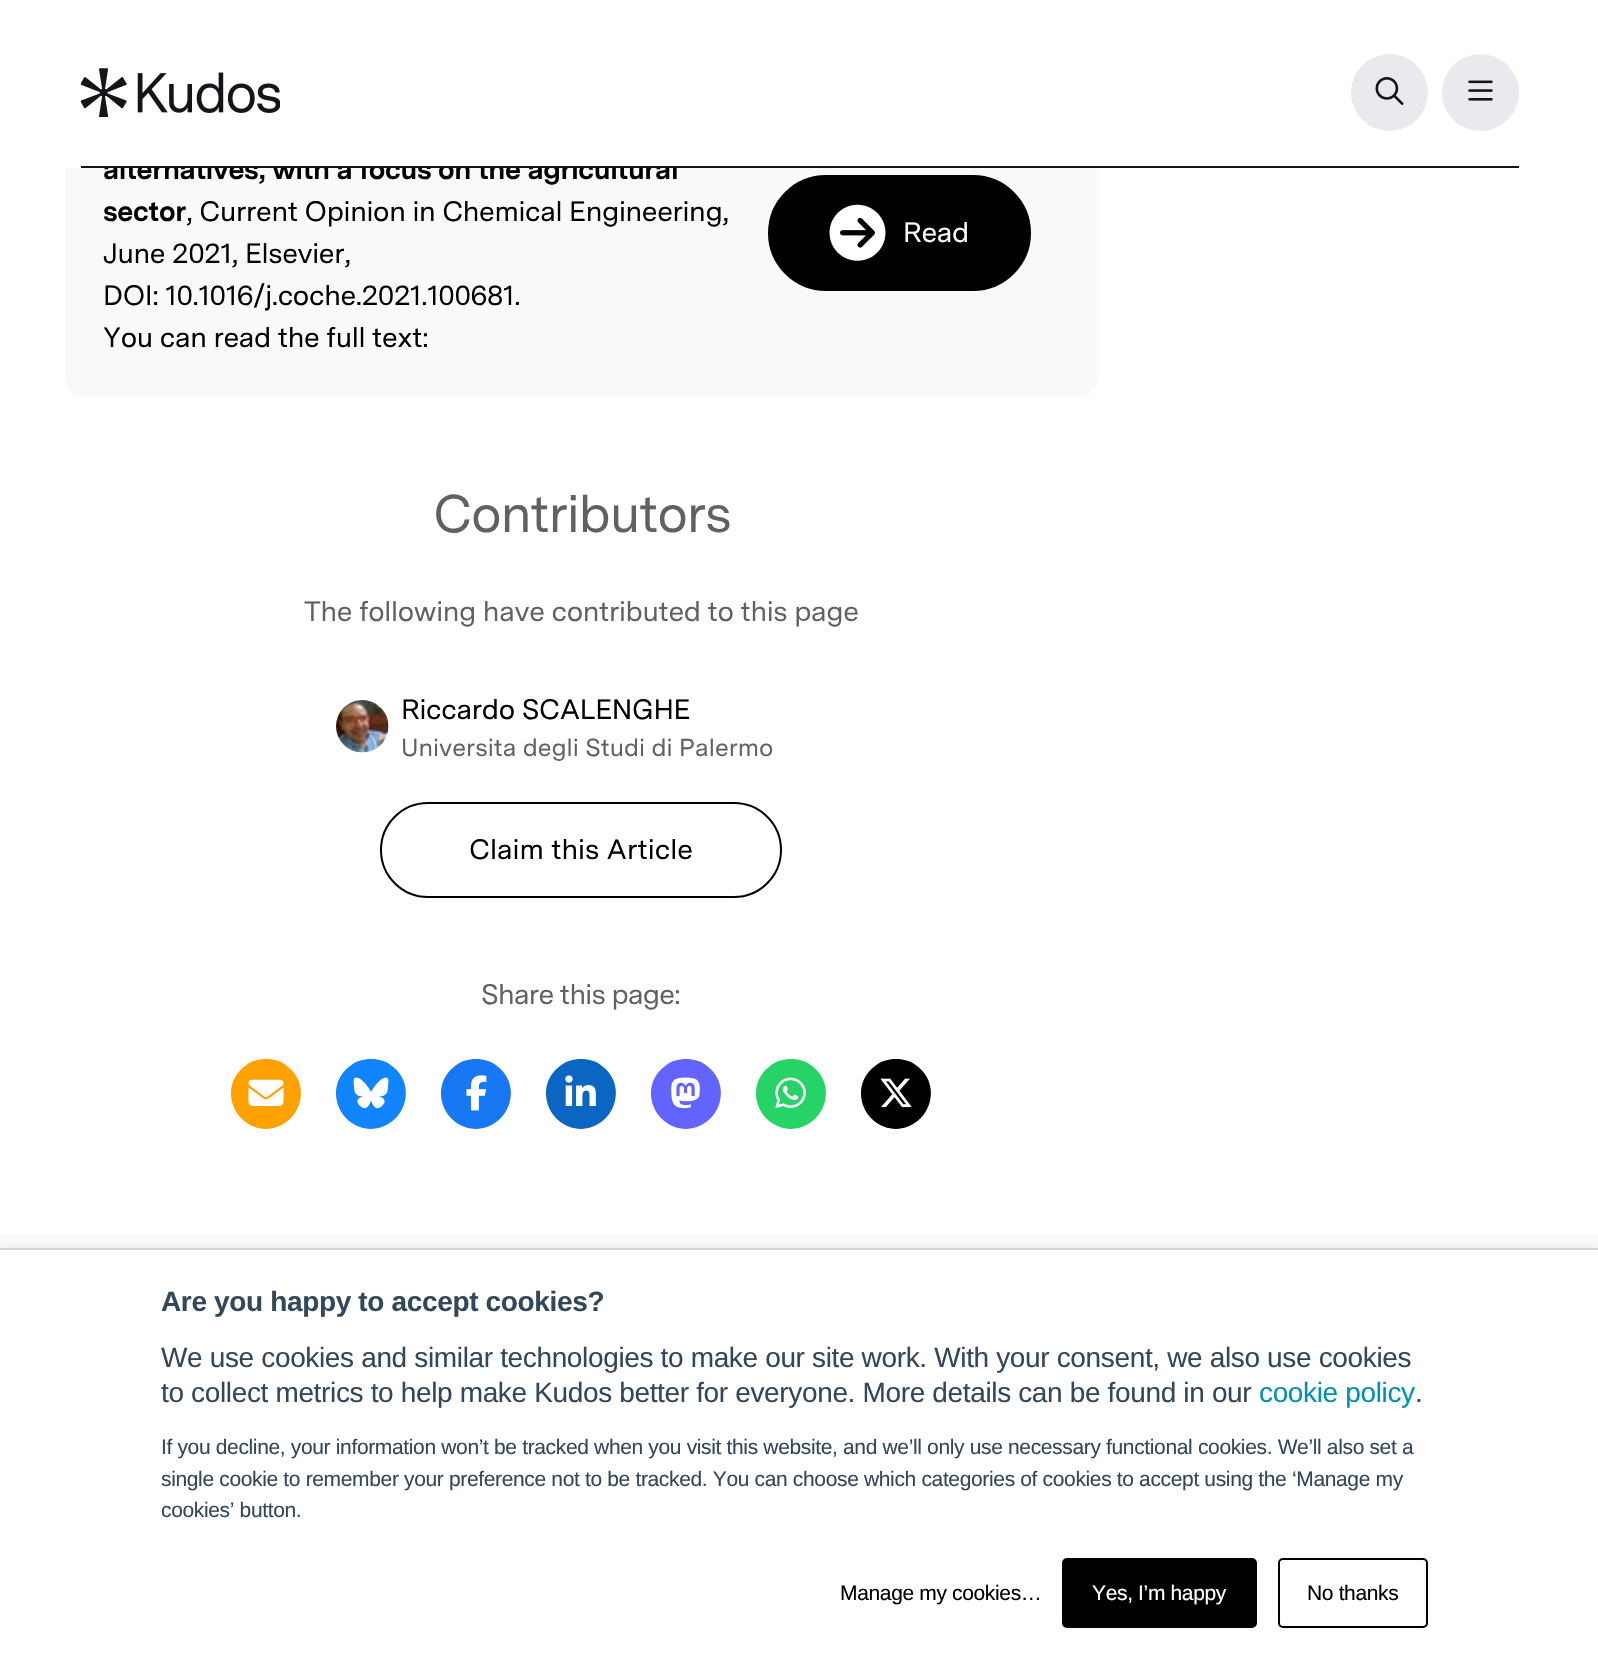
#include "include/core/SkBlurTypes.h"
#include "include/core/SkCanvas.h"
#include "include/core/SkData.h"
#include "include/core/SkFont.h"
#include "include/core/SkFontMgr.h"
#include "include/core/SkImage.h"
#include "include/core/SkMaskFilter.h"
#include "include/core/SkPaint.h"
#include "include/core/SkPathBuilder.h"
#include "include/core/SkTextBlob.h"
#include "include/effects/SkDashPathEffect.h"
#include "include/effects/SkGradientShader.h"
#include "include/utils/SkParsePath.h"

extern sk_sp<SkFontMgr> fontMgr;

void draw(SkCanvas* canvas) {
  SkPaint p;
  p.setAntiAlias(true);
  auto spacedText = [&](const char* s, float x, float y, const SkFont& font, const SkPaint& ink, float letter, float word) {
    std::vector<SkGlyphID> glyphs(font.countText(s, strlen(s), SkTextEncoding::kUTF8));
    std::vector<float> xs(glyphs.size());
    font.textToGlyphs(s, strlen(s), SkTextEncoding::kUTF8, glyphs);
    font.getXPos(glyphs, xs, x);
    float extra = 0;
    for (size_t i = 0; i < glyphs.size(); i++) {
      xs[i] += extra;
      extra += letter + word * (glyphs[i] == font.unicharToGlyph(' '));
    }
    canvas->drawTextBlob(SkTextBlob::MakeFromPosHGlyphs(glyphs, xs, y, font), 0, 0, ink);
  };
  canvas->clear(SK_ColorWHITE);
  p.setColor(SkColorSetRGB(232, 234, 237));
  canvas->drawCircle(1389.5f, 92.5f, 38.5f, p);
  canvas->drawImageRect(SkImages::DeferredFromEncodedData(SkData::MakeFromFileName("images/2.png")), SkRect::MakeLTRB(1375, 77, 1404, 105), SkSamplingOptions());
  canvas->drawCircle(1480.5f, 92.5f, 38.5f, p);
  canvas->drawImageRect(SkImages::DeferredFromEncodedData(SkData::MakeFromFileName("images/3.png")), SkRect::MakeLTRB(1468, 80, 1493, 101), SkSamplingOptions());
  p.setColor(SkColorSetRGB(249, 249, 249));
  canvas->drawRoundRect(SkRect::MakeLTRB(65, 68, 1097, 397), 18, 18, p);
  p.setColor(SK_ColorBLACK);
  canvas->drawRoundRect(SkRect::MakeLTRB(769, 176, 1030, 290), 57, 57, p);
  p.setStyle(SkPaint::kStroke_Style);
  p.setStrokeWidth(2);
  canvas->drawRoundRect(SkRect::MakeLTRB(769, 176, 1030, 290), 57, 57, p);
  canvas->drawImageRect(SkImages::DeferredFromEncodedData(SkData::MakeFromFileName("images/4.png")), SkRect::MakeLTRB(829, 204, 886, 261), SkSamplingOptions());
  canvas->drawImageRect(SkImages::DeferredFromEncodedData(SkData::MakeFromFileName("images/5.png")), SkRect::MakeLTRB(336, 700, 389, 753), SkSamplingOptions());
  canvas->drawRoundRect(SkRect::MakeLTRB(381, 803, 781, 897), 47, 47, p);
  p.setStyle(SkPaint::kFill_Style);
  p.setColor(SkColorSetRGB(255, 161, 0));
  canvas->drawPath(SkPathBuilder().moveTo(266, 1129).cubicTo(299, 1128, 314, 1086, 287, 1066).cubicTo(281, 1061, 274, 1059, 266, 1059).cubicTo(258, 1059, 251, 1061, 245, 1066).cubicTo(218, 1086, 233, 1128, 266, 1129).close().detach(), p);
  canvas->drawImageRect(SkImages::DeferredFromEncodedData(SkData::MakeFromFileName("images/6.png")), SkRect::MakeLTRB(248, 1079, 284, 1106), SkSamplingOptions());
  p.setColor(SkColorSetRGB(17, 133, 254));
  canvas->drawPath(SkPathBuilder().moveTo(371, 1129).cubicTo(404, 1128, 419, 1086, 392, 1066).cubicTo(386, 1061, 379, 1059, 371, 1059).cubicTo(363, 1059, 356, 1061, 350, 1066).cubicTo(323, 1086, 338, 1128, 371, 1129).close().detach(), p);
  canvas->drawImageRect(SkImages::DeferredFromEncodedData(SkData::MakeFromFileName("images/7.png")), SkRect::MakeLTRB(353, 1077, 389, 1109), SkSamplingOptions());
  p.setColor(SkColorSetRGB(24, 119, 242));
  canvas->drawPath(SkPathBuilder().moveTo(476, 1129).cubicTo(509, 1128, 524, 1086, 497, 1066).cubicTo(491, 1061, 484, 1059, 476, 1059).cubicTo(468, 1059, 461, 1061, 455, 1066).cubicTo(428, 1086, 443, 1128, 476, 1129).close().detach(), p);
  canvas->drawImageRect(SkImages::DeferredFromEncodedData(SkData::MakeFromFileName("images/8.png")), SkRect::MakeLTRB(466, 1075, 487, 1111), SkSamplingOptions());
  p.setColor(SkColorSetRGB(10, 102, 194));
  canvas->drawPath(SkPathBuilder().moveTo(581, 1129).cubicTo(614, 1128, 629, 1086, 602, 1066).cubicTo(596, 1061, 589, 1059, 581, 1059).cubicTo(573, 1059, 566, 1061, 560, 1066).cubicTo(533, 1086, 548, 1128, 581, 1129).close().detach(), p);
  canvas->drawImageRect(SkImages::DeferredFromEncodedData(SkData::MakeFromFileName("images/9.png")), SkRect::MakeLTRB(565, 1075, 596, 1106), SkSamplingOptions());
  p.setColor(SkColorSetRGB(99, 100, 255));
  canvas->drawPath(SkPathBuilder().moveTo(686, 1129).cubicTo(719, 1128, 734, 1086, 707, 1066).cubicTo(701, 1061, 694, 1059, 686, 1059).cubicTo(678, 1059, 671, 1061, 665, 1066).cubicTo(638, 1086, 653, 1128, 686, 1129).close().detach(), p);
  canvas->drawImageRect(SkImages::DeferredFromEncodedData(SkData::MakeFromFileName("images/10.png")), SkRect::MakeLTRB(671, 1077, 700, 1109), SkSamplingOptions());
  p.setColor(SkColorSetRGB(37, 211, 102));
  canvas->drawPath(SkPathBuilder().moveTo(791, 1129).cubicTo(824, 1128, 839, 1086, 812, 1066).cubicTo(806, 1061, 799, 1059, 791, 1059).cubicTo(783, 1059, 776, 1061, 770, 1066).cubicTo(743, 1086, 758, 1128, 791, 1129).close().detach(), p);
  canvas->drawImageRect(SkImages::DeferredFromEncodedData(SkData::MakeFromFileName("images/11.png")), SkRect::MakeLTRB(775, 1077, 806, 1109), SkSamplingOptions());
  p.setColor(SK_ColorBLACK);
  canvas->drawPath(SkPathBuilder().moveTo(896, 1129).cubicTo(929, 1128, 944, 1086, 917, 1066).cubicTo(911, 1061, 904, 1059, 896, 1059).cubicTo(888, 1059, 881, 1061, 875, 1066).cubicTo(848, 1086, 863, 1128, 896, 1129).close().detach(), p);
  canvas->drawImageRect(SkImages::DeferredFromEncodedData(SkData::MakeFromFileName("images/12.png")), SkRect::MakeLTRB(880, 1078, 912, 1108), SkSamplingOptions());
  p.setColor(SkColorSetRGB(249, 249, 249));
  canvas->drawRect(SkRect::MakeLTRB(0, 1234, 1598, 1248), p);
  p.setColor(SkColorSetRGB(234, 240, 246));
  p.setMaskFilter(SkMaskFilter::MakeBlur(kNormal_SkBlurStyle, 2.5f));
  canvas->drawRect(SkRect::MakeLTRB(0, 1246, 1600, 1671), p);
  p.setMaskFilter(nullptr);
  p.setColor(SK_ColorWHITE);
  canvas->drawRect(SkRect::MakeLTRB(0, 1250, 1598, 1672), p);
  p.setColor(SkColorSetRGB(203, 214, 226));
  canvas->drawRect(SkRect::MakeLTRB(0, 1248, 1598, 1250), p);
  p.setColor(SK_ColorBLACK);
  canvas->drawRoundRect(SkRect::MakeLTRB(1063, 1559, 1256, 1627), 4, 4, p);
  p.setStyle(SkPaint::kStroke_Style);
  canvas->drawRoundRect(SkRect::MakeLTRB(1063, 1559, 1256, 1627), 4, 4, p);
  canvas->drawRoundRect(SkRect::MakeLTRB(1279, 1559, 1427, 1627), 4, 4, p);
  SkFont font1(fontMgr->matchFamilyStyle("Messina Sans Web", SkFontStyle::Bold()), 28);
  font1.setSubpixel(true);
  p.setStyle(SkPaint::kFill_Style);
  spacedText("alternatives, with a focus on the agricultural", 103, 179, font1, p, -0.35f, 0);
  p.setColor(SK_ColorWHITE);
  canvas->drawRect(SkRect::MakeLTRB(65, 68, 1097, 168), p);
  canvas->drawImageRect(SkImages::DeferredFromEncodedData(SkData::MakeFromFileName("images/1.png")), SkRect::MakeLTRB(81, 68, 280, 117), SkSamplingOptions());
  p.setColor(SkColorSetRGB(20, 20, 27));
  canvas->drawRect(SkRect::MakeLTRB(81, 166, 1519, 168), p);
  p.setColor(SK_ColorBLACK);
  spacedText("sector", 103, 221, font1, p, -0.35f, 0);
  SkFont font2(fontMgr->matchFamilyStyle("Messina Sans Web", SkFontStyle::Normal()), 28);
  font2.setSubpixel(true);
  spacedText(", Current Opinion in Chemical Engineering,", 186, 221, font2, p, -0.35f, 0);
  spacedText("June 2021, Elsevier,", 103, 263, font2, p, -0.35f, 0);
  spacedText("DOI: 10.1016/j.coche.2021.100681.", 103, 305, font2, p, -0.35f, 0);
  spacedText("You can read the full text:", 103, 347, font2, p, -0.35f, 0);
  p.setColor(SK_ColorWHITE);
  spacedText("Read", 903, 242, font2, p, -0.35f, 0);
  SkFont font3(fontMgr->matchFamilyStyle("Messina Sans Web", SkFontStyle::Normal()), 52.5f);
  font3.setSubpixel(true);
  p.setColor(SkColorSetRGB(97, 97, 97));
  spacedText("Contributors", 433, 532, font3, p, -1.25f, 0);
  spacedText("The following have contributed to this page", 304, 621, font2, p, -0.35f, 0);
  p.setColor(SK_ColorBLACK);
  spacedText("Riccardo SCALENGHE", 401, 719, font2, p, -0.35f, 0);
  SkFont font4(fontMgr->matchFamilyStyle("Messina Sans Web", SkFontStyle::Normal()), 24.5f);
  font4.setSubpixel(true);
  p.setColor(SkColorSetRGB(97, 97, 97));
  canvas->drawString("Universita degli Studi di Palermo", 401, 756, font4, p);
  p.setColor(SK_ColorBLACK);
  canvas->drawString("Claim this Article", 469, 859, font2, p);
  p.setColor(SkColorSetRGB(97, 97, 97));
  spacedText("Share this page:", 481, 1004, font2, p, -0.75f, 0);
  SkFont font5(fontMgr->matchFamilyStyle("Liberation Sans", SkFontStyle::Bold()), 28);
  font5.setSubpixel(true);
  p.setColor(SkColorSetRGB(51, 71, 91));
  spacedText("Are you happy to accept cookies?", 161, 1311, font5, p, -0.35f, 0);
  SkFont font6(fontMgr->matchFamilyStyle("Liberation Sans", SkFontStyle::Normal()), 28);
  font6.setSubpixel(true);
  spacedText("We use cookies and similar technologies to make our site work. With your consent, we also use cookies", 161, 1367, font6, p, -0.35f, 0);
  spacedText("to collect metrics to help make Kudos better for everyone. More details can be found in our", 161, 1402, font6, p, -0.35f, 0);
  p.setColor(SkColorSetRGB(0, 145, 174));
  spacedText("cookie policy", 1259, 1402, font6, p, -0.35f, 0);
  p.setColor(SkColorSetRGB(51, 71, 91));
  spacedText(".", 1415, 1402, font6, p, -0.35f, 0);
  SkFont font7(fontMgr->matchFamilyStyle("Liberation Sans", SkFontStyle::Normal()), 21);
  font7.setSubpixel(true);
  spacedText("If you decline, your information won’t be tracked when you visit this website, and we’ll only use necessary functional cookies. We’ll also set a", 161, 1454, font7, p, -0.35f, 0);
  spacedText("single cookie to remember your preference not to be tracked. You can choose which categories of cookies to accept using the ‘Manage my", 161, 1486, font7, p, -0.35f, 0);
  spacedText("cookies’ button.", 161, 1517, font7, p, -0.35f, 0);
  p.setColor(SK_ColorBLACK);
  spacedText("Manage my cookies…", 840, 1600, font7, p, -0.35f, 0);
  p.setColor(SK_ColorWHITE);
  spacedText("Yes, I’m happy", 1092, 1600, font7, p, -0.35f, 0);
  p.setColor(SK_ColorBLACK);
  spacedText("No thanks", 1307, 1600, font7, p, -0.35f, 0);
}
